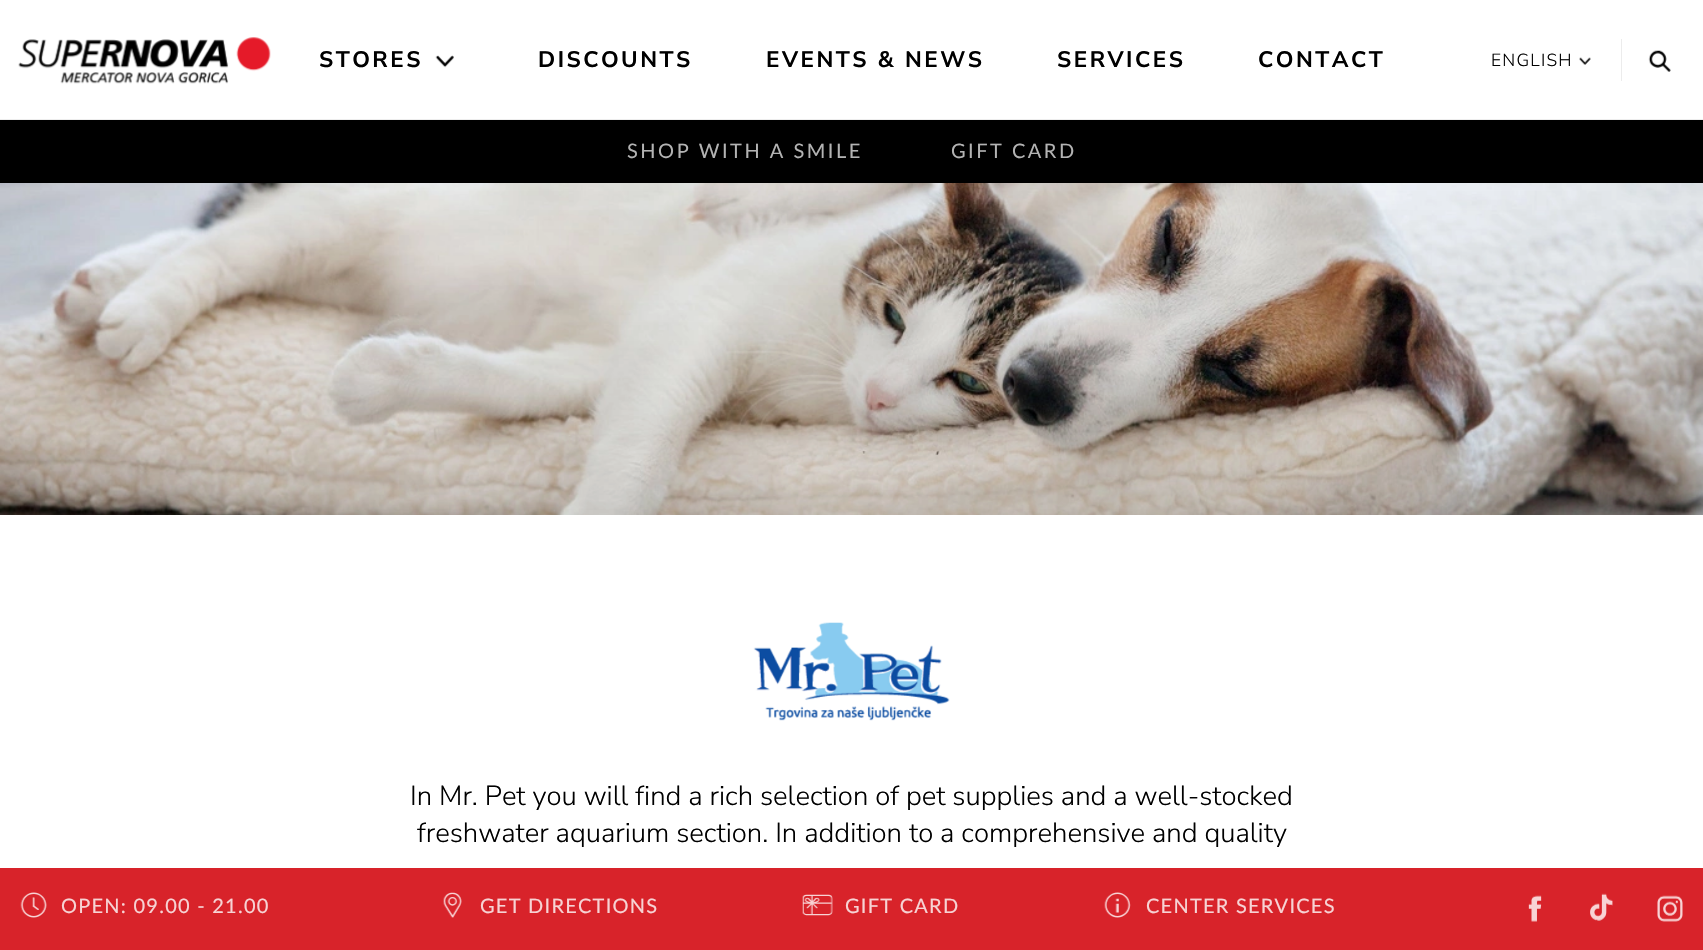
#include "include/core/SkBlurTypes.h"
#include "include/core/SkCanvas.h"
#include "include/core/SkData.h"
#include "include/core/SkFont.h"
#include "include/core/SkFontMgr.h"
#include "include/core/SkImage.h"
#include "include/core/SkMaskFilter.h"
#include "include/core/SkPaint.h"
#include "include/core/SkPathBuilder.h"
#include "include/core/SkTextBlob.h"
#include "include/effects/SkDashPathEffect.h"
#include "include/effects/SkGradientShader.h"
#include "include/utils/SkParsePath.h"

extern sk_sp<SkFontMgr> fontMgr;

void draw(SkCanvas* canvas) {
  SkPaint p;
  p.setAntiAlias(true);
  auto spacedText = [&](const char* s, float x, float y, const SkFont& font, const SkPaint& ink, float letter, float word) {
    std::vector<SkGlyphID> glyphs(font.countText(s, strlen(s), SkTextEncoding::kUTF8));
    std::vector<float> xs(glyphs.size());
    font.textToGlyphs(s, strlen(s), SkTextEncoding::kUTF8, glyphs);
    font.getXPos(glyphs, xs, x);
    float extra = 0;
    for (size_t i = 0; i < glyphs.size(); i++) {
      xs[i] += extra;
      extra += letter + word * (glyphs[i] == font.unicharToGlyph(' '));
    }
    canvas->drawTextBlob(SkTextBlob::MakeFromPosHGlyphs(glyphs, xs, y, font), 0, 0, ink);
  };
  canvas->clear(SK_ColorWHITE);
  p.setColor(SkColorSetRGB(237, 237, 237));
  canvas->drawRect(SkRect::MakeLTRB(0, 119, 1703, 120), p);
  canvas->drawImageRect(SkImages::DeferredFromEncodedData(SkData::MakeFromFileName("images/1.png")), SkRect::MakeLTRB(18, 37, 271, 84), SkSamplingOptions());
  canvas->drawImageRect(SkImages::DeferredFromEncodedData(SkData::MakeFromFileName("images/2.png")), SkRect::MakeLTRB(435, 55, 454, 68), SkSamplingOptions());
  p.setColor(SkColorSetRGB(236, 236, 236));
  canvas->drawRect(SkRect::MakeLTRB(1621, 39, 1622, 81), p);
  canvas->drawImageRect(SkImages::DeferredFromEncodedData(SkData::MakeFromFileName("images/3.png")), SkRect::MakeLTRB(1579, 57, 1591, 65), SkSamplingOptions());
  canvas->drawImageRect(SkImages::DeferredFromEncodedData(SkData::MakeFromFileName("images/4.png")), SkRect::MakeLTRB(1648, 50, 1671, 72), SkSamplingOptions());
  p.setColor(SK_ColorBLACK);
  canvas->drawRect(SkRect::MakeLTRB(0, 120, 1703, 183), p);
  canvas->drawImageRect(SkImages::DeferredFromEncodedData(SkData::MakeFromFileName("images/5.png")), SkRect::MakeLTRB(0, 183, 1703, 515), SkSamplingOptions());
  canvas->drawImageRect(SkImages::DeferredFromEncodedData(SkData::MakeFromFileName("images/6.png")), SkRect::MakeLTRB(753, 622, 950, 721), SkSamplingOptions());
  p.setColor(SkColorSetRGB(216, 35, 42));
  canvas->drawRect(SkRect::MakeLTRB(0, 868, 1703, 950), p);
  canvas->drawImageRect(SkImages::DeferredFromEncodedData(SkData::MakeFromFileName("images/7.png")), SkRect::MakeLTRB(20, 892, 47, 918), SkSamplingOptions());
  canvas->drawImageRect(SkImages::DeferredFromEncodedData(SkData::MakeFromFileName("images/8.png")), SkRect::MakeLTRB(443, 892, 462, 918), SkSamplingOptions());
  canvas->drawImageRect(SkImages::DeferredFromEncodedData(SkData::MakeFromFileName("images/9.png")), SkRect::MakeLTRB(802, 894, 833, 916), SkSamplingOptions());
  canvas->drawImageRect(SkImages::DeferredFromEncodedData(SkData::MakeFromFileName("images/10.png")), SkRect::MakeLTRB(1104, 892, 1131, 918), SkSamplingOptions());
  canvas->drawImageRect(SkImages::DeferredFromEncodedData(SkData::MakeFromFileName("images/11.png")), SkRect::MakeLTRB(1528, 895, 1542, 922), SkSamplingOptions());
  canvas->drawImageRect(SkImages::DeferredFromEncodedData(SkData::MakeFromFileName("images/12.png")), SkRect::MakeLTRB(1590, 893, 1613, 921), SkSamplingOptions());
  canvas->drawImageRect(SkImages::DeferredFromEncodedData(SkData::MakeFromFileName("images/13.png")), SkRect::MakeLTRB(1657, 895, 1683, 922), SkSamplingOptions());
  SkFont font1(fontMgr->matchFamilyStyle("Nunito Sans", SkFontStyle::Bold()), 22.5f);
  font1.setSubpixel(true);
  p.setColor(SK_ColorBLACK);
  spacedText("STORES", 319, 67, font1, p, 2.5f, 0);
  spacedText("DISCOUNTS", 538, 67, font1, p, 2.5f, 0);
  spacedText("EVENTS & NEWS", 766, 67, font1, p, 2.5f, 0);
  spacedText("SERVICES", 1057, 67, font1, p, 2.5f, 0);
  spacedText("CONTACT", 1258, 67, font1, p, 2.5f, 0);
  SkFont font2(fontMgr->matchFamilyStyle("Nunito Sans", SkFontStyle(300, SkFontStyle::kNormal_Width, SkFontStyle::kUpright_Slant)), 17.5f);
  font2.setSubpixel(true);
  spacedText("ENGLISH", 1491, 66, font2, p, 1.25f, 0);
  SkFont font3(fontMgr->matchFamilyStyle("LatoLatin", SkFontStyle::Normal()), 20);
  font3.setSubpixel(true);
  p.setColor(SkColorSetRGB(179, 179, 179));
  spacedText("SHOP WITH A SMILE", 627, 158, font3, p, 2.5f, 0);
  spacedText("GIFT CARD", 951, 158, font3, p, 2.5f, 0);
  SkFont font4(fontMgr->matchFamilyStyle("Nunito Sans", SkFontStyle(300, SkFontStyle::kNormal_Width, SkFontStyle::kUpright_Slant)), 27.5f);
  font4.setSubpixel(true);
  p.setColor(SK_ColorBLACK);
  canvas->drawString("In Mr. Pet you will find a rich selection of pet supplies and a well-stocked", 410, 805, font4, p);
  canvas->drawString("freshwater aquarium section. In addition to a comprehensive and quality", 417, 842, font4, p);
  p.setColor(SkColorSetRGB(247, 211, 212));
  spacedText("OPEN: 09.00 - 21.00", 61, 913, font3, p, 1.25f, 0);
  spacedText("GET DIRECTIONS", 480, 913, font3, p, 1.25f, 0);
  spacedText("GIFT CARD", 845, 913, font3, p, 1.25f, 0);
  spacedText("CENTER SERVICES", 1146, 913, font3, p, 1.25f, 0);
}
